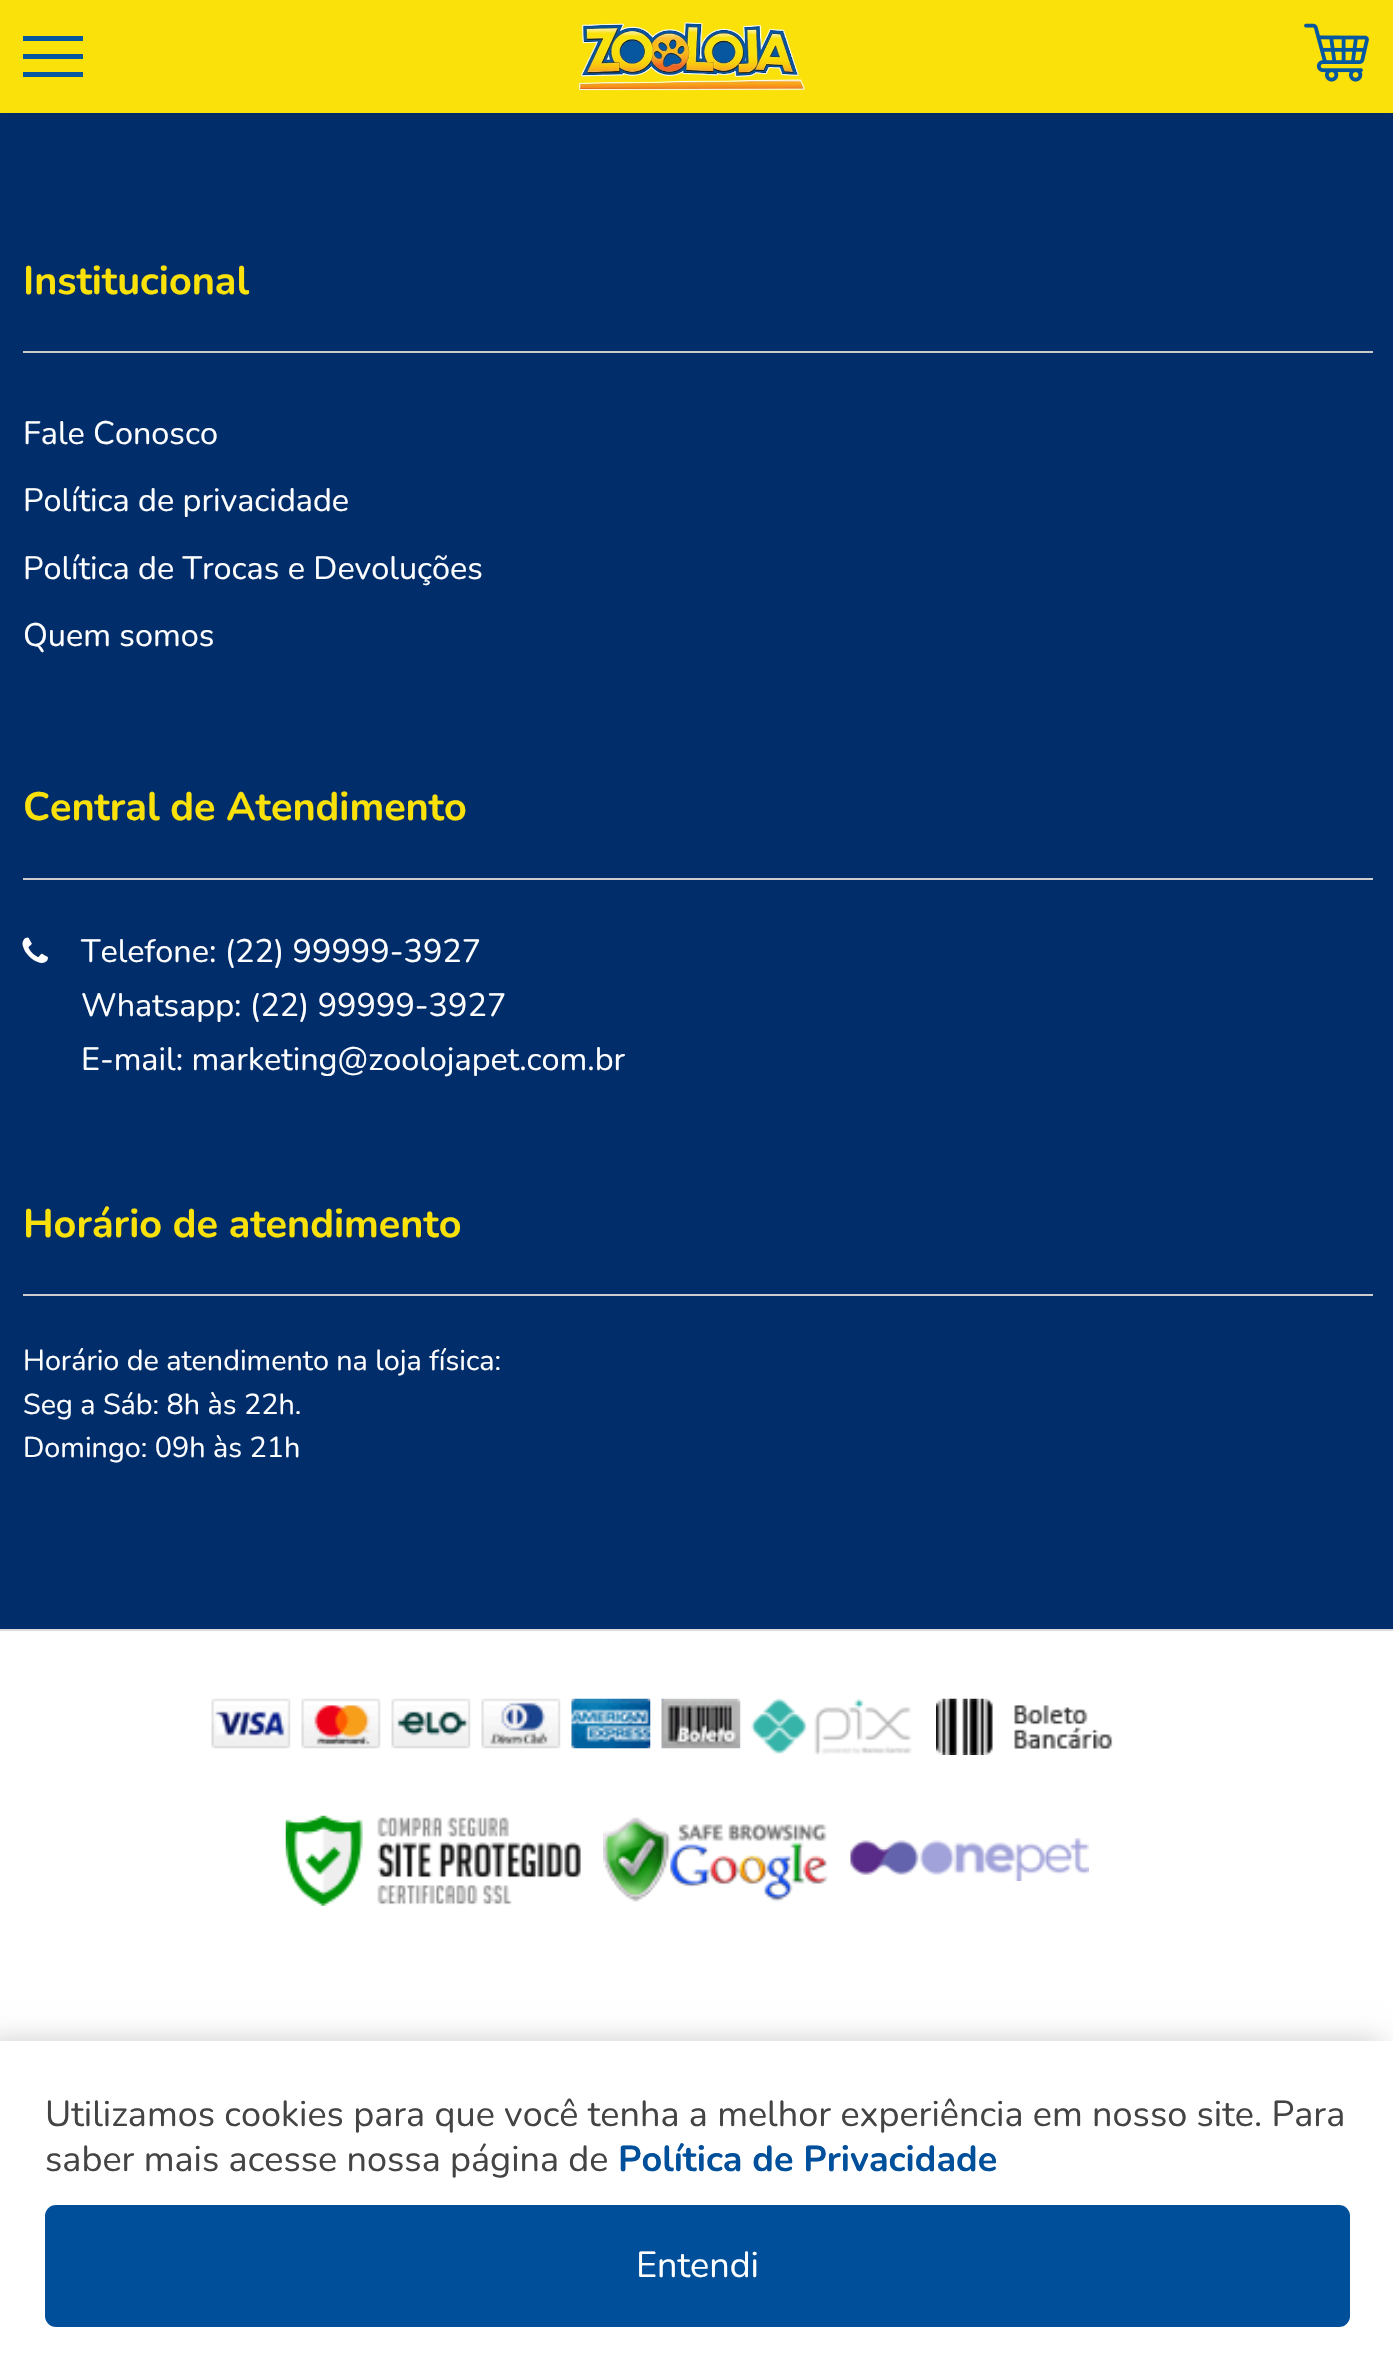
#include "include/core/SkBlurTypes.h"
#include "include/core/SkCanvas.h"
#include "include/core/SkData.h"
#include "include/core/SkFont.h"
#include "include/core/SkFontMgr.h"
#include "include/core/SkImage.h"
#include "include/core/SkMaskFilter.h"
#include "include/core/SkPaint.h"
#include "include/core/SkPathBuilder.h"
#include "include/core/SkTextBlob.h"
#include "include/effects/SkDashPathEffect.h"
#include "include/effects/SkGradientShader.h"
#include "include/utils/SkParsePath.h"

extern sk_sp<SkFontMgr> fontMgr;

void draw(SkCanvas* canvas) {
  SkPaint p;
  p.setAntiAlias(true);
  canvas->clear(SK_ColorWHITE);
  p.setColor(SkColorSetRGB(1, 46, 107));
  canvas->drawRect(SkRect::MakeLTRB(0, 113, 1393, 1629), p);
  p.setColor(SkColorSetARGB(26, 0, 0, 0));
  p.setMaskFilter(SkMaskFilter::MakeBlur(kNormal_SkBlurStyle, 5.5f));
  canvas->drawRect(SkRect::MakeLTRB(0, 2, 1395, 115), p);
  p.setMaskFilter(nullptr);
  p.setColor(SkColorSetRGB(251, 225, 10));
  canvas->drawRect(SkRect::MakeLTRB(0, 0, 1393, 113), p);
  p.setColor(SkColorSetRGB(5, 87, 160));
  canvas->drawRect(SkRect::MakeLTRB(23, 36, 83, 41), p);
  canvas->drawRect(SkRect::MakeLTRB(23, 54, 83, 59), p);
  canvas->drawRect(SkRect::MakeLTRB(23, 72, 83, 77), p);
  canvas->drawImageRect(SkImages::DeferredFromEncodedData(SkData::MakeFromFileName("images/1.png")), SkRect::MakeLTRB(579, 22, 805, 91), SkSamplingOptions());
  canvas->drawImageRect(SkImages::DeferredFromEncodedData(SkData::MakeFromFileName("images/2.png")), SkRect::MakeLTRB(1304, 23, 1369, 82), SkSamplingOptions());
  p.setColor(SkColorSetRGB(204, 204, 204));
  canvas->drawRect(SkRect::MakeLTRB(23, 351, 1373, 353), p);
  canvas->drawRect(SkRect::MakeLTRB(23, 878, 1373, 880), p);
  canvas->drawImageRect(SkImages::DeferredFromEncodedData(SkData::MakeFromFileName("images/3.png")), SkRect::MakeLTRB(22, 937, 48, 963), SkSamplingOptions());
  canvas->drawRect(SkRect::MakeLTRB(23, 1294, 1373, 1296), p);
  p.setColor(SkColorSetRGB(221, 221, 221));
  canvas->drawRect(SkRect::MakeLTRB(0, 1629, 1393, 1631), p);
  canvas->drawImageRect(SkImages::DeferredFromEncodedData(SkData::MakeFromFileName("images/4.png")), SkRect::MakeLTRB(211, 1698, 291, 1749), SkSamplingOptions());
  canvas->drawImageRect(SkImages::DeferredFromEncodedData(SkData::MakeFromFileName("images/5.png")), SkRect::MakeLTRB(301, 1698, 381, 1749), SkSamplingOptions());
  canvas->drawImageRect(SkImages::DeferredFromEncodedData(SkData::MakeFromFileName("images/6.png")), SkRect::MakeLTRB(391, 1698, 471, 1749), SkSamplingOptions());
  canvas->drawImageRect(SkImages::DeferredFromEncodedData(SkData::MakeFromFileName("images/7.png")), SkRect::MakeLTRB(481, 1698, 561, 1749), SkSamplingOptions());
  canvas->drawImageRect(SkImages::DeferredFromEncodedData(SkData::MakeFromFileName("images/8.png")), SkRect::MakeLTRB(571, 1698, 651, 1749), SkSamplingOptions());
  canvas->drawImageRect(SkImages::DeferredFromEncodedData(SkData::MakeFromFileName("images/9.png")), SkRect::MakeLTRB(661, 1698, 741, 1749), SkSamplingOptions());
  canvas->drawImageRect(SkImages::DeferredFromEncodedData(SkData::MakeFromFileName("images/10.png")), SkRect::MakeLTRB(751, 1698, 912, 1755), SkSamplingOptions());
  canvas->drawImageRect(SkImages::DeferredFromEncodedData(SkData::MakeFromFileName("images/11.png")), SkRect::MakeLTRB(936, 1698, 1113, 1755), SkSamplingOptions());
  canvas->drawImageRect(SkImages::DeferredFromEncodedData(SkData::MakeFromFileName("images/12.png")), SkRect::MakeLTRB(285, 1815, 581, 1906), SkSamplingOptions());
  canvas->drawImageRect(SkImages::DeferredFromEncodedData(SkData::MakeFromFileName("images/13.png")), SkRect::MakeLTRB(603, 1817, 828, 1902), SkSamplingOptions());
  canvas->drawImageRect(SkImages::DeferredFromEncodedData(SkData::MakeFromFileName("images/14.png")), SkRect::MakeLTRB(850, 1838, 1089, 1881), SkSamplingOptions());
  p.setColor(SkColorSetARGB(51, 0, 0, 0));
  p.setMaskFilter(SkMaskFilter::MakeBlur(kNormal_SkBlurStyle, 13.5f));
  canvas->drawRect(SkRect::MakeLTRB(-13, 2041, 1382, 2378), p);
  p.setMaskFilter(nullptr);
  p.setColor(SK_ColorWHITE);
  canvas->drawRect(SkRect::MakeLTRB(0, 2041, 1393, 2378), p);
  p.setColor(SkColorSetRGB(0, 79, 154));
  canvas->drawRoundRect(SkRect::MakeLTRB(45, 2205, 1350, 2327), 11, 11, p);
  SkFont font1(fontMgr->matchFamilyStyle("Nunito", SkFontStyle::Bold()), 39.6f);
  font1.setSubpixel(true);
  p.setColor(SkColorSetRGB(251, 225, 10));
  canvas->drawString("Institucional", 23, 294, font1, p);
  SkFont font2(fontMgr->matchFamilyStyle("Nunito", SkFontStyle::Normal()), 32.4f);
  font2.setSubpixel(true);
  p.setColor(SK_ColorWHITE);
  canvas->drawString("Fale Conosco", 23, 444, font2, p);
  canvas->drawString("Política de privacidade", 23, 511, font2, p);
  canvas->drawString("Política de Trocas e Devoluções", 23, 579, font2, p);
  canvas->drawString("Quem somos", 23, 646, font2, p);
  p.setColor(SkColorSetRGB(251, 225, 10));
  canvas->drawString("Central de Atendimento", 23, 820, font1, p);
  p.setColor(SK_ColorWHITE);
  canvas->drawString("Telefone: (22) 99999-3927", 81, 962, font2, p);
  canvas->drawString("Whatsapp: (22) 99999-3927", 81, 1016, font2, p);
  canvas->drawString("E-mail: marketing@zoolojapet.com.br", 81, 1070, font2, p);
  p.setColor(SkColorSetRGB(251, 225, 10));
  canvas->drawString("Horário de atendimento", 23, 1237, font1, p);
  SkFont font3(fontMgr->matchFamilyStyle("Nunito", SkFontStyle::Normal()), 28.75f);
  font3.setSubpixel(true);
  p.setColor(SK_ColorWHITE);
  canvas->drawString("Horário de atendimento na loja física:", 23, 1370, font3, p);
  canvas->drawString("Seg a Sáb: 8h às 22h.", 23, 1414, font3, p);
  canvas->drawString("Domingo: 09h às 21h", 23, 1457, font3, p);
  SkFont font4(fontMgr->matchFamilyStyle("Nunito", SkFontStyle::Normal()), 36);
  font4.setSubpixel(true);
  p.setColor(SkColorSetRGB(68, 68, 68));
  canvas->drawString("Utilizamos cookies para que você tenha a melhor experiência em nosso site. Para", 45, 2126, font4, p);
  canvas->drawString("saber mais acesse nossa página de", 45, 2171, font4, p);
  SkFont font5(fontMgr->matchFamilyStyle("Nunito", SkFontStyle::Bold()), 36);
  font5.setSubpixel(true);
  p.setColor(SkColorSetRGB(0, 79, 154));
  canvas->drawString("Política de Privacidade", 618, 2171, font5, p);
  p.setColor(SK_ColorWHITE);
  canvas->drawString("Entendi", 636, 2277, font4, p);
}
